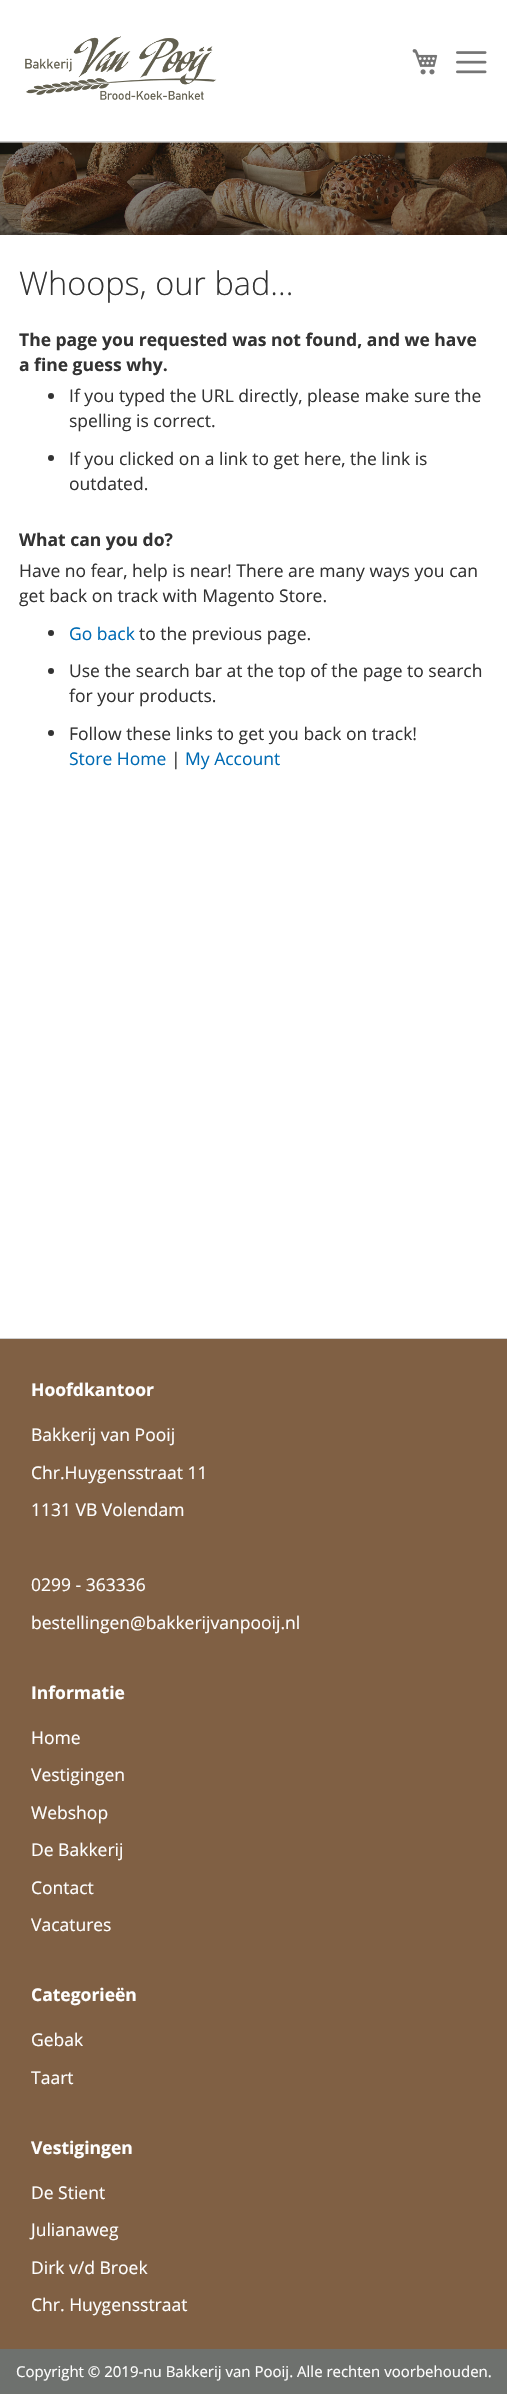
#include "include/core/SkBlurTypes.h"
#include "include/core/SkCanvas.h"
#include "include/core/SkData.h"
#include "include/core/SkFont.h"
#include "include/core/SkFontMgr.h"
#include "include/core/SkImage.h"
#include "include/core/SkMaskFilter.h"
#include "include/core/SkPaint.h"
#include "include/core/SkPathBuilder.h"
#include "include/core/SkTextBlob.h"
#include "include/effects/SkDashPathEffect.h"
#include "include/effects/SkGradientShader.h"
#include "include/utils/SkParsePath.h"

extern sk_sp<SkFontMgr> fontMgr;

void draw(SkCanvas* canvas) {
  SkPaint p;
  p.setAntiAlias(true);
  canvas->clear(SK_ColorWHITE);
  p.setColor(SkColorSetRGB(204, 204, 204));
  canvas->drawRect(SkRect::MakeLTRB(0, 141, 507, 142), p);
  canvas->drawImageRect(SkImages::DeferredFromEncodedData(SkData::MakeFromFileName("images/1.png")), SkRect::MakeLTRB(25, 36, 217, 100), SkSamplingOptions());
  canvas->drawImageRect(SkImages::DeferredFromEncodedData(SkData::MakeFromFileName("images/2.png")), SkRect::MakeLTRB(412, 49, 438, 75), SkSamplingOptions());
  canvas->drawImageRect(SkImages::DeferredFromEncodedData(SkData::MakeFromFileName("images/3.png")), SkRect::MakeLTRB(456, 51, 487, 74), SkSamplingOptions());
  canvas->drawImageRect(SkImages::DeferredFromEncodedData(SkData::MakeFromFileName("images/4.png")), SkRect::MakeLTRB(0, 142, 507, 235), SkSamplingOptions());
  p.setColor(SkColorSetRGB(51, 51, 51));
  canvas->drawCircle(51, 396, 3, p);
  canvas->drawCircle(51, 458, 3, p);
  canvas->drawCircle(51, 633, 3, p);
  canvas->drawCircle(51, 671, 3, p);
  canvas->drawCircle(51, 733, 3, p);
  p.setColor(SkColorSetRGB(128, 96, 68));
  canvas->drawRect(SkRect::MakeLTRB(0, 1339, 507, 2349), p);
  p.setColor(SkColorSetRGB(206, 206, 206));
  canvas->drawRect(SkRect::MakeLTRB(0, 1338, 507, 1339), p);
  p.setColor(SkColorSetRGB(110, 113, 110));
  canvas->drawRect(SkRect::MakeLTRB(0, 2349, 507, 2394), p);
  SkFont font1(fontMgr->matchFamilyStyle("Open Sans", SkFontStyle(300, SkFontStyle::kNormal_Width, SkFontStyle::kUpright_Slant)), 32.5f);
  font1.setSubpixel(true);
  p.setColor(SkColorSetRGB(51, 51, 51));
  canvas->drawString("Whoops, our bad...", 19, 295, font1, p);
  SkFont font2(fontMgr->matchFamilyStyle("Open Sans", SkFontStyle::Bold()), 17.5f);
  font2.setSubpixel(true);
  canvas->drawString("The page you requested was not found, and we have", 19, 346, font2, p);
  canvas->drawString("a fine guess why.", 19, 371, font2, p);
  SkFont font3(fontMgr->matchFamilyStyle("Open Sans", SkFontStyle::Normal()), 17.5f);
  font3.setSubpixel(true);
  canvas->drawString("If you typed the URL directly, please make sure the", 69, 402, font3, p);
  canvas->drawString("spelling is correct.", 69, 427, font3, p);
  canvas->drawString("If you clicked on a link to get here, the link is", 69, 465, font3, p);
  canvas->drawString("outdated.", 69, 490, font3, p);
  canvas->drawString("What can you do?", 19, 546, font2, p);
  canvas->drawString("Have no fear, help is near! There are many ways you can", 19, 577, font3, p);
  canvas->drawString("get back on track with Magento Store.", 19, 602, font3, p);
  p.setColor(SkColorSetRGB(0, 107, 180));
  canvas->drawString("Go back", 69, 640, font3, p);
  p.setColor(SkColorSetRGB(51, 51, 51));
  canvas->drawString("to the previous page.", 139, 640, font3, p);
  canvas->drawString("Use the search bar at the top of the page to search", 69, 677, font3, p);
  canvas->drawString("for your products.", 69, 702, font3, p);
  canvas->drawString("Follow these links to get you back on track!", 69, 740, font3, p);
  p.setColor(SkColorSetRGB(0, 107, 180));
  canvas->drawString("Store Home", 69, 765, font3, p);
  p.setColor(SkColorSetRGB(51, 51, 51));
  canvas->drawString("|", 171, 765, font3, p);
  p.setColor(SkColorSetRGB(0, 107, 180));
  canvas->drawString("My Account", 185, 765, font3, p);
  p.setColor(SK_ColorWHITE);
  canvas->drawString("Hoofdkantoor", 31, 1396, font2, p);
  canvas->drawString("Bakkerij van Pooij", 31, 1441, font3, p);
  canvas->drawString("Chr.Huygensstraat 11", 31, 1479, font3, p);
  canvas->drawString("1131 VB Volendam", 31, 1516, font3, p);
  canvas->drawString("0299 - 363336", 31, 1591, font3, p);
  canvas->drawString("bestellingen@bakkerijvanpooij.nl", 31, 1629, font3, p);
  canvas->drawString("Informatie", 31, 1699, font2, p);
  canvas->drawString("Home", 31, 1744, font3, p);
  canvas->drawString("Vestigingen", 31, 1781, font3, p);
  canvas->drawString("Webshop", 31, 1819, font3, p);
  canvas->drawString("De Bakkerij", 31, 1856, font3, p);
  canvas->drawString("Contact", 31, 1894, font3, p);
  canvas->drawString("Vacatures", 31, 1931, font3, p);
  canvas->drawString("Categorieën", 31, 2001, font2, p);
  canvas->drawString("Gebak", 31, 2046, font3, p);
  canvas->drawString("Taart", 31, 2084, font3, p);
  canvas->drawString("Vestigingen", 31, 2154, font2, p);
  canvas->drawString("De Stient", 31, 2199, font3, p);
  canvas->drawString("Julianaweg", 31, 2236, font3, p);
  canvas->drawString("Dirk v/d Broek", 31, 2274, font3, p);
  canvas->drawString("Chr. Huygensstraat", 31, 2311, font3, p);
  SkFont font4(fontMgr->matchFamilyStyle("Open Sans", SkFontStyle::Normal()), 15);
  font4.setSubpixel(true);
  canvas->drawString("Copyright © 2019-nu Bakkerij van Pooij. Alle rechten voorbehouden.", 16, 2377, font4, p);
}
